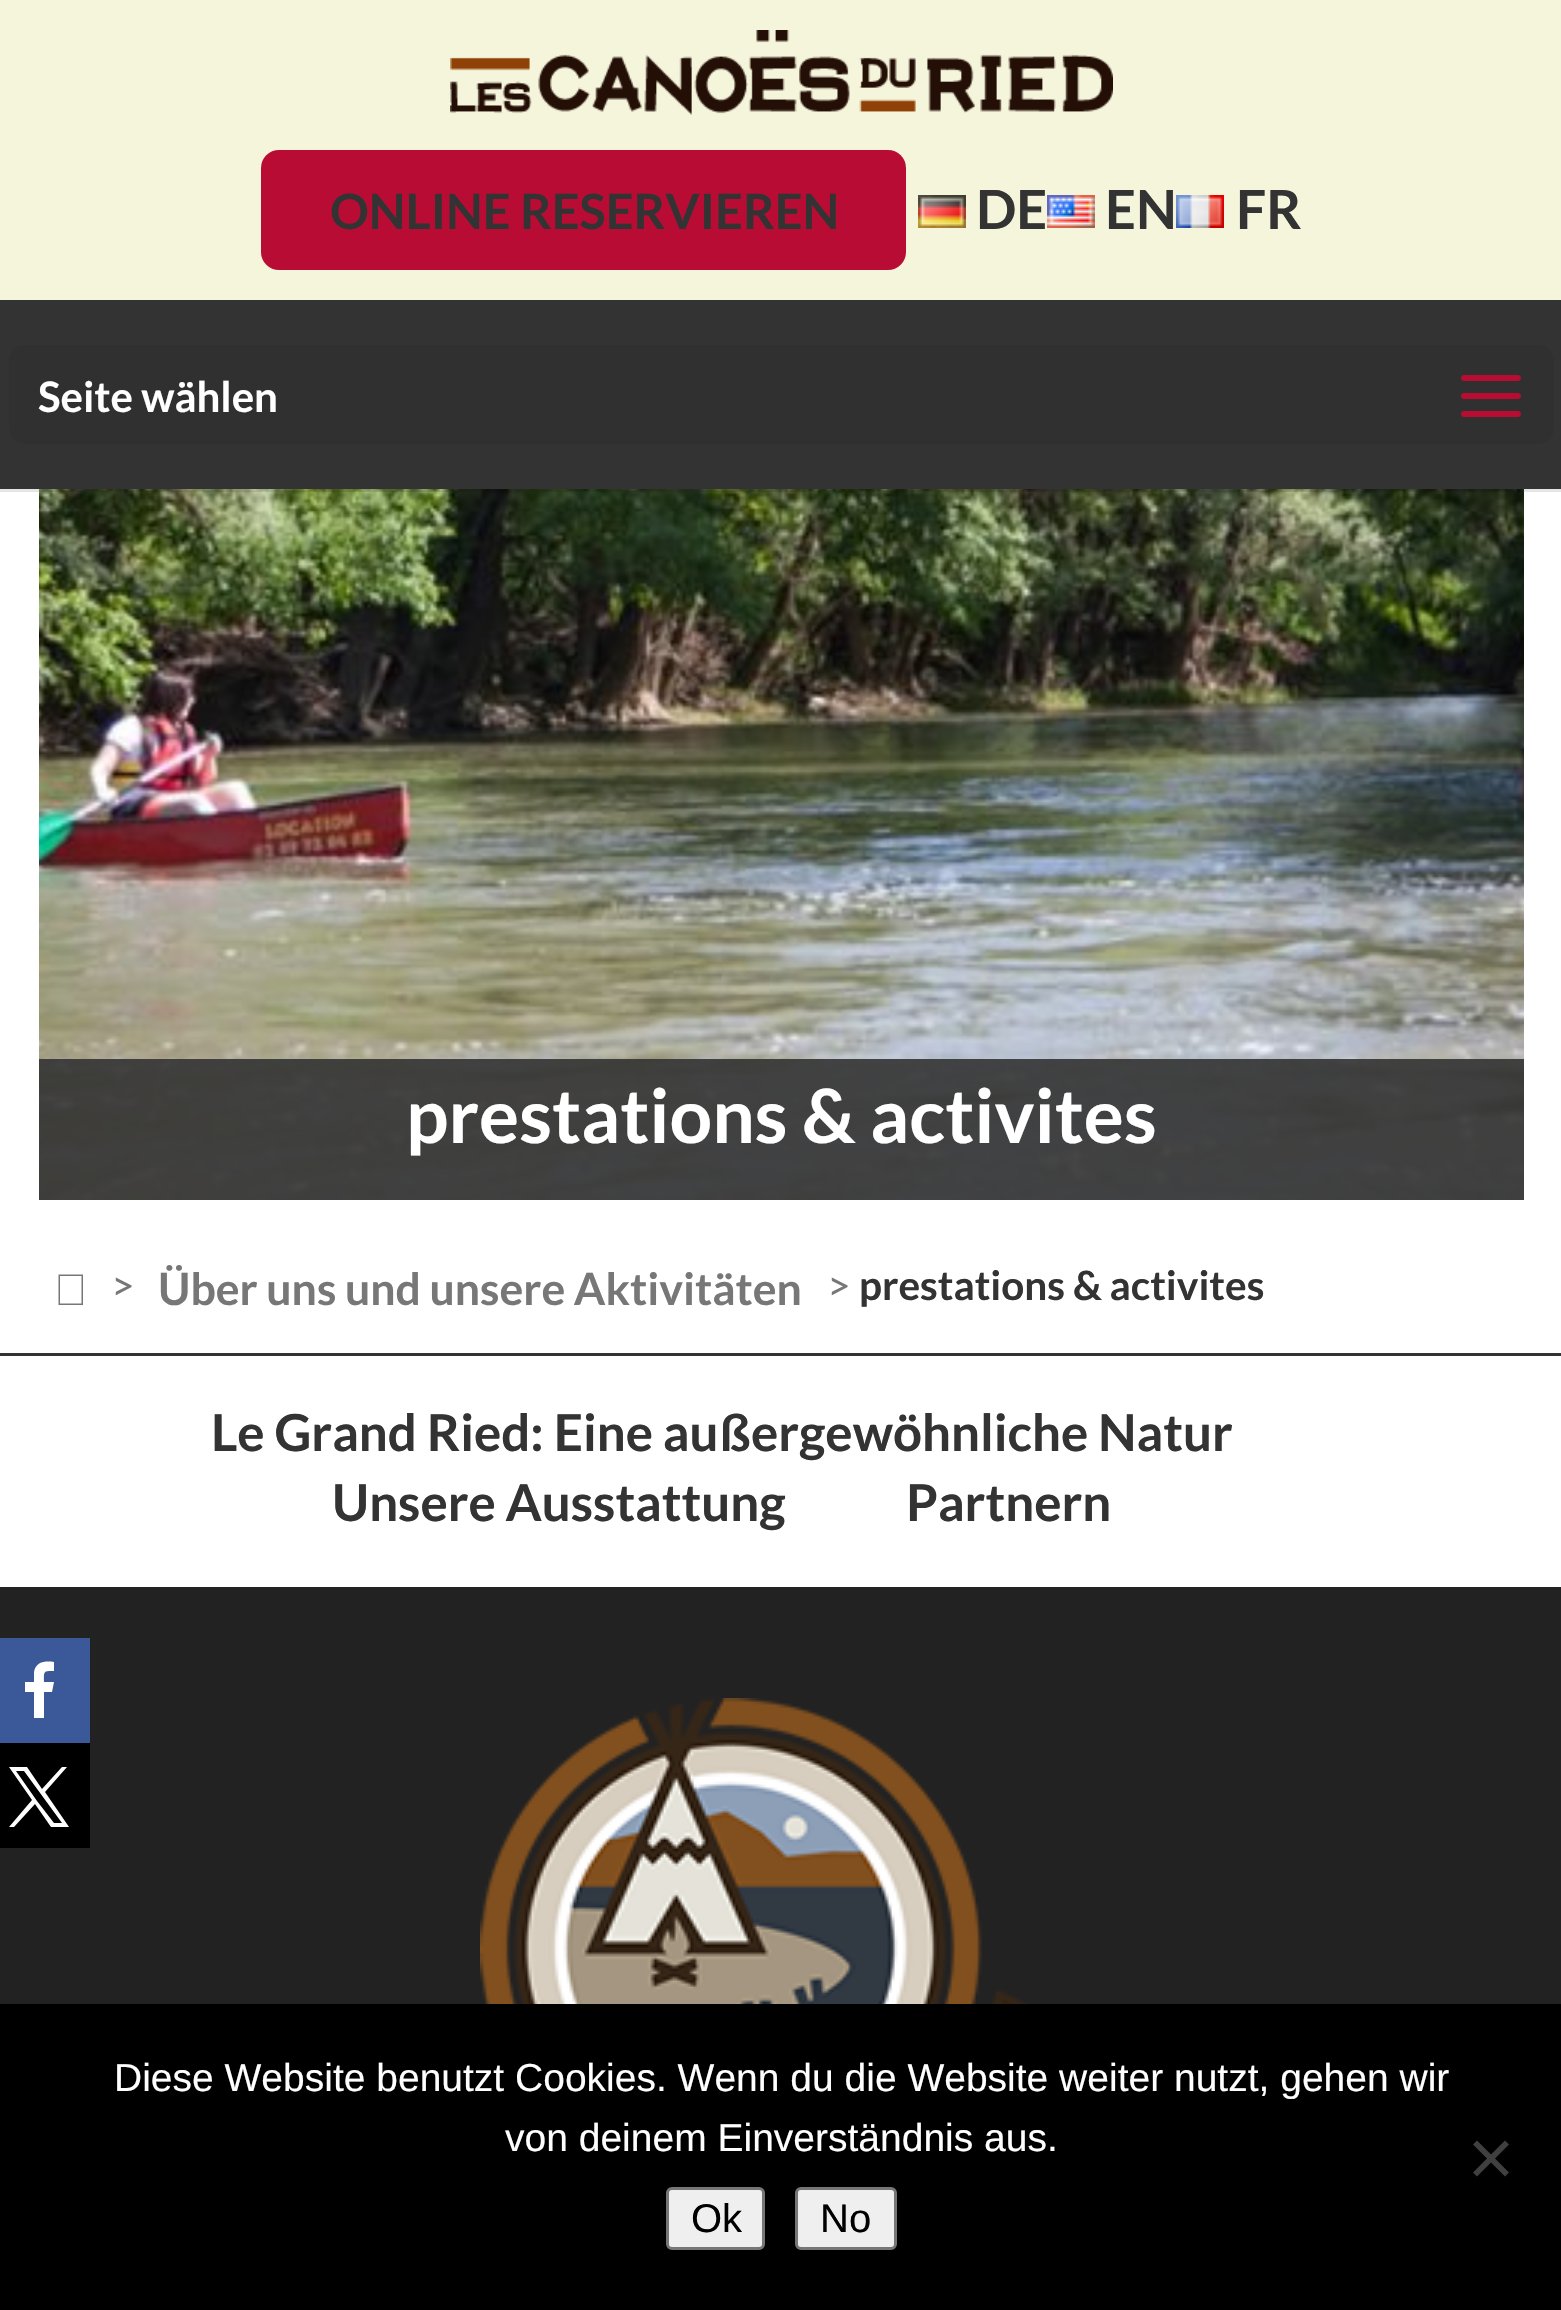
#include "include/core/SkBlurTypes.h"
#include "include/core/SkCanvas.h"
#include "include/core/SkData.h"
#include "include/core/SkFont.h"
#include "include/core/SkFontMgr.h"
#include "include/core/SkImage.h"
#include "include/core/SkMaskFilter.h"
#include "include/core/SkPaint.h"
#include "include/core/SkPathBuilder.h"
#include "include/core/SkTextBlob.h"
#include "include/effects/SkDashPathEffect.h"
#include "include/effects/SkGradientShader.h"
#include "include/utils/SkParsePath.h"

extern sk_sp<SkFontMgr> fontMgr;

void draw(SkCanvas* canvas) {
  SkPaint p;
  p.setAntiAlias(true);
  canvas->clear(SK_ColorWHITE);
  p.setColor(SkColorSetRGB(245, 245, 220));
  canvas->drawRect(SkRect::MakeLTRB(0, 0, 1561, 300), p);
  canvas->drawImageRect(SkImages::DeferredFromEncodedData(SkData::MakeFromFileName("images/1.png")), SkRect::MakeLTRB(450, 30, 1113, 115), SkSamplingOptions());
  p.setColor(SkColorSetRGB(184, 12, 52));
  canvas->drawRoundRect(SkRect::MakeLTRB(261, 150, 906, 270), 18, 18, p);
  canvas->drawImageRect(SkImages::DeferredFromEncodedData(SkData::MakeFromFileName("images/2.png")), SkRect::MakeLTRB(918, 195, 966, 228), SkSamplingOptions());
  canvas->drawImageRect(SkImages::DeferredFromEncodedData(SkData::MakeFromFileName("images/3.png")), SkRect::MakeLTRB(1047, 195, 1095, 228), SkSamplingOptions());
  canvas->drawImageRect(SkImages::DeferredFromEncodedData(SkData::MakeFromFileName("images/4.png")), SkRect::MakeLTRB(1176, 195, 1224, 228), SkSamplingOptions());
  canvas->drawImageRect(SkImages::DeferredFromEncodedData(SkData::MakeFromFileName("images/6.png")), SkRect::MakeLTRB(39, 489, 1524, 1200), SkSamplingOptions());
  p.setColor(SkColorSetARGB(26, 0, 0, 0));
  canvas->drawRect(SkRect::MakeLTRB(0, 489, 1561, 492), p);
  p.setColor(SkColorSetRGB(51, 51, 51));
  canvas->drawRect(SkRect::MakeLTRB(0, 300, 1561, 489), p);
  p.setColor(SkColorSetRGB(48, 48, 48));
  canvas->drawRoundRect(SkRect::MakeLTRB(9, 345, 1554, 444), 15, 15, p);
  canvas->drawImageRect(SkImages::DeferredFromEncodedData(SkData::MakeFromFileName("images/5.png")), SkRect::MakeLTRB(1461, 375, 1521, 417), SkSamplingOptions());
  p.setColor(SkColorSetARGB(230, 51, 51, 51));
  canvas->drawRect(SkRect::MakeLTRB(39, 1059, 1524, 1200), p);
  p.setColor(SkColorSetRGB(119, 119, 119));
  canvas->drawPath(SkPathBuilder().moveTo(58.5f, 1274.5f).lineTo(83, 1274.5f).lineTo(83, 1305).lineTo(58.5f, 1305).close().moveTo(60, 1276).lineTo(60, 1303.5f).lineTo(81.5f, 1303.5f).lineTo(81.5f, 1276).close().detach(), p);
  p.setColor(SkColorSetRGB(34, 34, 34));
  canvas->drawRect(SkRect::MakeLTRB(0, 1587, 1561, 2004), p);
  p.setColor(SkColorSetRGB(51, 51, 51));
  canvas->drawRect(SkRect::MakeLTRB(0, 1353, 1561, 1356), p);
  canvas->drawImageRect(SkImages::DeferredFromEncodedData(SkData::MakeFromFileName("images/7.png")), SkRect::MakeLTRB(480, 1698, 1032, 2004), SkSamplingOptions());
  p.setColor(SkColorSetRGB(59, 89, 152));
  canvas->drawRect(SkRect::MakeLTRB(0, 1638, 90, 1743), p);
  p.setColor(SK_ColorWHITE);
  canvas->drawPath(SkPathBuilder().moveTo(54, 1662).lineTo(54, 1671).cubicTo(43, 1671, 44, 1671, 44, 1682).lineTo(54, 1682).lineTo(52, 1692).lineTo(44, 1692).lineTo(44, 1718).lineTo(34, 1718).lineTo(34, 1692).lineTo(25, 1692).lineTo(25, 1682).lineTo(34, 1682).lineTo(34, 1672).cubicTo(36, 1661, 46, 1661, 54, 1662).close().detach(), p);
  p.setColor(SK_ColorBLACK);
  canvas->drawRect(SkRect::MakeLTRB(0, 1743, 90, 1848), p);
  p.setColor(SK_ColorWHITE);
  canvas->drawPath(SkPathBuilder().moveTo(45, 1792).lineTo(67, 1767).lineTo(62, 1767).lineTo(42, 1789).lineTo(27, 1767).lineTo(9, 1767).lineTo(32, 1800).lineTo(9, 1827).lineTo(14, 1827).lineTo(35, 1804).lineTo(51, 1827).lineTo(69, 1827).close().moveTo(37, 1801).lineTo(16, 1771).lineTo(24, 1771).lineTo(62, 1823).lineTo(54, 1823).close().detach(), p);
  p.setColor(SK_ColorBLACK);
  canvas->drawRect(SkRect::MakeLTRB(0, 2004, 1561, 2310), p);
  p.setColor(SkColorSetRGB(64, 64, 64));
  canvas->drawPath(SkPathBuilder().moveTo(1505, 2140.5f).lineTo(1509, 2144.5f).lineTo(1477, 2176.5f).lineTo(1473, 2172.5f).close().detach(), p);
  canvas->drawPath(SkPathBuilder().moveTo(1473, 2144.5f).lineTo(1477, 2140.5f).lineTo(1509, 2172.5f).lineTo(1505, 2176.5f).close().detach(), p);
  p.setColor(SkColorSetRGB(239, 239, 239));
  canvas->drawRoundRect(SkRect::MakeLTRB(667.5f, 2188.5f, 763.5f, 2248.5f), 4.5f, 4.5f, p);
  p.setStyle(SkPaint::kStroke_Style);
  p.setStrokeWidth(3);
  p.setColor(SkColorSetRGB(118, 118, 118));
  canvas->drawRoundRect(SkRect::MakeLTRB(667.5f, 2188.5f, 763.5f, 2248.5f), 4.5f, 4.5f, p);
  p.setStyle(SkPaint::kFill_Style);
  p.setColor(SkColorSetRGB(239, 239, 239));
  canvas->drawRoundRect(SkRect::MakeLTRB(796.5f, 2188.5f, 895.5f, 2248.5f), 4.5f, 4.5f, p);
  p.setStyle(SkPaint::kStroke_Style);
  p.setColor(SkColorSetRGB(118, 118, 118));
  canvas->drawRoundRect(SkRect::MakeLTRB(796.5f, 2188.5f, 895.5f, 2248.5f), 4.5f, 4.5f, p);
  SkFont font1(fontMgr->matchFamilyStyle("Lato", SkFontStyle::Bold()), 48.6f);
  font1.setSubpixel(true);
  p.setStyle(SkPaint::kFill_Style);
  p.setColor(SkColorSetRGB(51, 51, 51));
  canvas->drawString("ONLINE RESERVIEREN", 330, 229, font1, p);
  SkFont font2(fontMgr->matchFamilyStyle("Lato", SkFontStyle::Bold()), 54);
  font2.setSubpixel(true);
  canvas->drawString("DE", 976, 229, font2, p);
  canvas->drawString("EN", 1105, 229, font2, p);
  canvas->drawString("FR", 1236, 229, font2, p);
  SkFont font3(fontMgr->matchFamilyStyle("Lato", SkFontStyle::Bold()), 42);
  font3.setSubpixel(true);
  p.setColor(SK_ColorWHITE);
  canvas->drawString("Seite wählen", 38, 412, font3, p);
  SkFont font4(fontMgr->matchFamilyStyle("Lato", SkFontStyle::Bold()), 75);
  font4.setSubpixel(true);
  canvas->drawString("prestations & activites", 406, 1143, font4, p);
  SkFont font5(fontMgr->matchFamilyStyle("Lato", SkFontStyle::Normal()), 40.5f);
  font5.setSubpixel(true);
  p.setColor(SkColorSetRGB(119, 119, 119));
  canvas->drawString(">", 111, 1300, font5, p);
  SkFont font6(fontMgr->matchFamilyStyle("Lato", SkFontStyle::Bold()), 44.5f);
  font6.setSubpixel(true);
  canvas->drawString("Über uns und unsere Aktivitäten", 158, 1305, font6, p);
  canvas->drawString(">", 827, 1300, font5, p);
  SkFont font7(fontMgr->matchFamilyStyle("Lato", SkFontStyle::Bold()), 40.5f);
  font7.setSubpixel(true);
  p.setColor(SkColorSetRGB(51, 51, 51));
  canvas->drawString("prestations & activites", 859, 1300, font7, p);
  SkFont font8(fontMgr->matchFamilyStyle("Lato", SkFontStyle::Bold()), 51);
  font8.setSubpixel(true);
  canvas->drawString("Le Grand Ried: Eine außergewöhnliche Natur", 211, 1451, font8, p);
  canvas->drawString("Unsere Ausstattung", 332, 1521, font8, p);
  canvas->drawString("Partnern", 906, 1521, font8, p);
  SkFont font9(fontMgr->matchFamilyStyle("Liberation Sans", SkFontStyle::Normal()), 39);
  font9.setSubpixel(true);
  p.setColor(SK_ColorWHITE);
  canvas->drawString("Diese Website benutzt Cookies. Wenn du die Website weiter nutzt, gehen wir", 114, 2091, font9, p);
  canvas->drawString("von deinem Einverständnis aus.", 505, 2151, font9, p);
  SkFont font10(fontMgr->matchFamilyStyle("Liberation Sans", SkFontStyle::Normal()), 40);
  font10.setSubpixel(true);
  p.setColor(SK_ColorBLACK);
  canvas->drawString("Ok", 691, 2232, font10, p);
  canvas->drawString("No", 820, 2232, font10, p);
}
